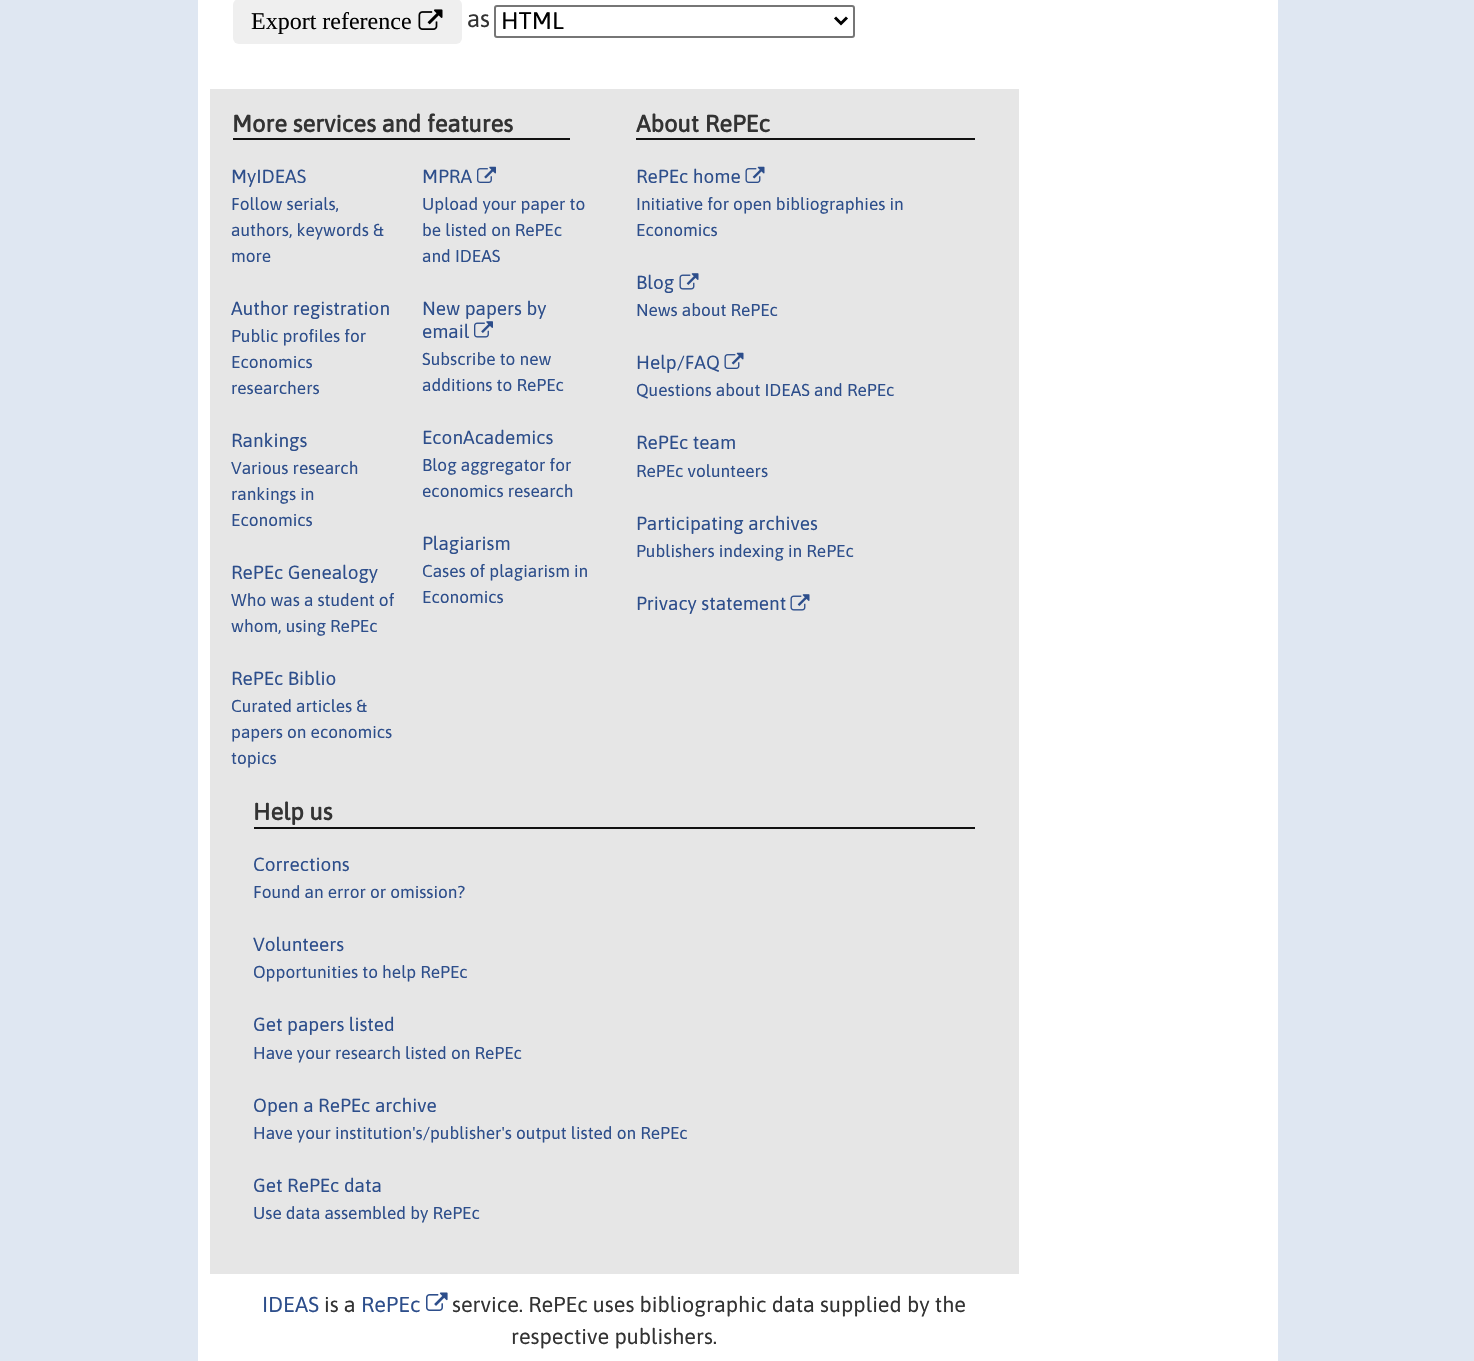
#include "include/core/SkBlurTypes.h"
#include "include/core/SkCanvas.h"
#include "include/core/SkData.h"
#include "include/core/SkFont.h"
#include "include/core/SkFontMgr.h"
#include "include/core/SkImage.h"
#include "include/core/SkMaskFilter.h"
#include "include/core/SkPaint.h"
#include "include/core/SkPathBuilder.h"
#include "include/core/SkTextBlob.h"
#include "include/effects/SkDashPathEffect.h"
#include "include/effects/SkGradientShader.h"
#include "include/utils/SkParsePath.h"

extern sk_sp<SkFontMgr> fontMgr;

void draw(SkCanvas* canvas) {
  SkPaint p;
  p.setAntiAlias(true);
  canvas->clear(SkColorSetRGB(223, 231, 242));
  p.setColor(SK_ColorWHITE);
  canvas->drawRect(SkRect::MakeLTRB(198, 0, 1278, 1361), p);
  p.setColor(SkColorSetRGB(239, 239, 239));
  canvas->drawRoundRect(SkRect::MakeLTRB(233, -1, 462, 44), 6, 6, p);
  canvas->drawImageRect(SkImages::DeferredFromEncodedData(SkData::MakeFromFileName("images/1.png")), SkRect::MakeLTRB(418, 9, 443, 30), SkSamplingOptions());
  p.setStyle(SkPaint::kStroke_Style);
  p.setStrokeWidth(2);
  p.setColor(SkColorSetRGB(118, 118, 118));
  canvas->drawRoundRect(SkRect::MakeLTRB(495, 6, 854, 37), 2, 2, p);
  p.setStrokeWidth(3);
  p.setColor(SK_ColorBLACK);
  canvas->drawPath(SkPathBuilder().moveTo(835, 17.5f).lineTo(841, 23.5f).lineTo(847, 17.5f).detach(), p);
  p.setStyle(SkPaint::kFill_Style);
  p.setColor(SkColorSetRGB(230, 230, 230));
  canvas->drawRect(SkRect::MakeLTRB(210, 89, 1019, 1274), p);
  p.setColor(SkColorSetRGB(17, 17, 17));
  canvas->drawRect(SkRect::MakeLTRB(233, 138, 570, 140), p);
  canvas->drawImageRect(SkImages::DeferredFromEncodedData(SkData::MakeFromFileName("images/2.png")), SkRect::MakeLTRB(477, 166, 496, 183), SkSamplingOptions());
  canvas->drawImageRect(SkImages::DeferredFromEncodedData(SkData::MakeFromFileName("images/3.png")), SkRect::MakeLTRB(474, 321, 493, 338), SkSamplingOptions());
  canvas->drawRect(SkRect::MakeLTRB(636, 138, 975, 140), p);
  canvas->drawImageRect(SkImages::DeferredFromEncodedData(SkData::MakeFromFileName("images/4.png")), SkRect::MakeLTRB(745, 166, 765, 183), SkSamplingOptions());
  canvas->drawImageRect(SkImages::DeferredFromEncodedData(SkData::MakeFromFileName("images/5.png")), SkRect::MakeLTRB(679, 273, 699, 290), SkSamplingOptions());
  canvas->drawImageRect(SkImages::DeferredFromEncodedData(SkData::MakeFromFileName("images/4.png")), SkRect::MakeLTRB(724, 352, 744, 369), SkSamplingOptions());
  canvas->drawImageRect(SkImages::DeferredFromEncodedData(SkData::MakeFromFileName("images/5.png")), SkRect::MakeLTRB(790, 594, 810, 611), SkSamplingOptions());
  canvas->drawRect(SkRect::MakeLTRB(254, 827, 975, 829), p);
  canvas->drawImageRect(SkImages::DeferredFromEncodedData(SkData::MakeFromFileName("images/6.png")), SkRect::MakeLTRB(426, 1292, 448, 1311), SkSamplingOptions());
  SkFont font1(fontMgr->matchFamilyStyle("Liberation Serif", SkFontStyle::Normal()), 24);
  font1.setSubpixel(true);
  p.setColor(SK_ColorBLACK);
  canvas->drawString("Export reference", 251, 29, font1, p);
  SkFont font2(fontMgr->matchFamilyStyle("Asap", SkFontStyle::Normal()), 24);
  font2.setSubpixel(true);
  p.setColor(SkColorSetRGB(51, 51, 51));
  canvas->drawString("as", 467, 27, font2, p);
  p.setColor(SK_ColorBLACK);
  canvas->drawString("HTML", 501, 29, font2, p);
  SkFont font3(fontMgr->matchFamilyStyle("Asap", SkFontStyle::Bold()), 23.75f);
  font3.setSubpixel(true);
  p.setColor(SkColorSetRGB(51, 51, 51));
  canvas->drawString("More services and features", 232, 132, font3, p);
  SkFont font4(fontMgr->matchFamilyStyle("Asap", SkFontStyle::Normal()), 19);
  font4.setSubpixel(true);
  p.setColor(SkColorSetRGB(45, 78, 139));
  canvas->drawString("MyIDEAS", 231, 183, font4, p);
  SkFont font5(fontMgr->matchFamilyStyle("Asap", SkFontStyle::Normal()), 17.25f);
  font5.setSubpixel(true);
  canvas->drawString("Follow serials,", 231, 210, font5, p);
  canvas->drawString("authors, keywords &", 231, 236, font5, p);
  canvas->drawString("more", 231, 262, font5, p);
  canvas->drawString("Author registration", 231, 315, font4, p);
  canvas->drawString("Public profiles for", 231, 342, font5, p);
  canvas->drawString("Economics", 231, 368, font5, p);
  canvas->drawString("researchers", 231, 394, font5, p);
  canvas->drawString("Rankings", 231, 447, font4, p);
  canvas->drawString("Various research", 231, 474, font5, p);
  canvas->drawString("rankings in", 231, 500, font5, p);
  canvas->drawString("Economics", 231, 526, font5, p);
  canvas->drawString("RePEc Genealogy", 231, 579, font4, p);
  canvas->drawString("Who was a student of", 231, 606, font5, p);
  canvas->drawString("whom, using RePEc", 231, 632, font5, p);
  canvas->drawString("RePEc Biblio", 231, 685, font4, p);
  canvas->drawString("Curated articles &", 231, 712, font5, p);
  canvas->drawString("papers on economics", 231, 738, font5, p);
  canvas->drawString("topics", 231, 764, font5, p);
  canvas->drawString("MPRA", 422, 183, font4, p);
  canvas->drawString("Upload your paper to", 422, 210, font5, p);
  canvas->drawString("be listed on RePEc", 422, 236, font5, p);
  canvas->drawString("and IDEAS", 422, 262, font5, p);
  canvas->drawString("New papers by", 422, 315, font4, p);
  canvas->drawString("email", 422, 338, font4, p);
  canvas->drawString("Subscribe to new", 422, 365, font5, p);
  canvas->drawString("additions to RePEc", 422, 391, font5, p);
  canvas->drawString("EconAcademics", 422, 444, font4, p);
  canvas->drawString("Blog aggregator for", 422, 471, font5, p);
  canvas->drawString("economics research", 422, 497, font5, p);
  canvas->drawString("Plagiarism", 422, 550, font4, p);
  canvas->drawString("Cases of plagiarism in", 422, 577, font5, p);
  canvas->drawString("Economics", 422, 603, font5, p);
  p.setColor(SkColorSetRGB(51, 51, 51));
  canvas->drawString("About RePEc", 636, 132, font3, p);
  p.setColor(SkColorSetRGB(45, 78, 139));
  canvas->drawString("RePEc home", 636, 183, font4, p);
  canvas->drawString("Initiative for open bibliographies in", 636, 210, font5, p);
  canvas->drawString("Economics", 636, 236, font5, p);
  canvas->drawString("Blog", 636, 289, font4, p);
  canvas->drawString("News about RePEc", 636, 316, font5, p);
  canvas->drawString("Help/FAQ", 636, 369, font4, p);
  canvas->drawString("Questions about IDEAS and RePEc", 636, 396, font5, p);
  canvas->drawString("RePEc team", 636, 449, font4, p);
  canvas->drawString("RePEc volunteers", 636, 477, font5, p);
  canvas->drawString("Participating archives", 636, 530, font4, p);
  canvas->drawString("Publishers indexing in RePEc", 636, 557, font5, p);
  canvas->drawString("Privacy statement", 636, 610, font4, p);
  p.setColor(SkColorSetRGB(51, 51, 51));
  canvas->drawString("Help us", 253, 820, font3, p);
  p.setColor(SkColorSetRGB(45, 78, 139));
  canvas->drawString("Corrections", 253, 871, font4, p);
  canvas->drawString("Found an error or omission?", 253, 898, font5, p);
  canvas->drawString("Volunteers", 253, 951, font4, p);
  canvas->drawString("Opportunities to help RePEc", 253, 978, font5, p);
  canvas->drawString("Get papers listed", 253, 1031, font4, p);
  canvas->drawString("Have your research listed on RePEc", 253, 1059, font5, p);
  canvas->drawString("Open a RePEc archive", 253, 1112, font4, p);
  canvas->drawString("Have your institution's/publisher's output listed on RePEc", 253, 1139, font5, p);
  canvas->drawString("Get RePEc data", 253, 1192, font4, p);
  canvas->drawString("Use data assembled by RePEc", 253, 1219, font5, p);
  SkFont font6(fontMgr->matchFamilyStyle("Asap", SkFontStyle::Normal()), 21.6f);
  font6.setSubpixel(true);
  canvas->drawString("IDEAS", 262, 1312, font6, p);
  p.setColor(SkColorSetRGB(51, 51, 51));
  canvas->drawString("is a", 324, 1312, font6, p);
  p.setColor(SkColorSetRGB(45, 78, 139));
  canvas->drawString("RePEc", 361, 1312, font6, p);
  p.setColor(SkColorSetRGB(51, 51, 51));
  canvas->drawString("service. RePEc uses bibliographic data supplied by the", 452, 1312, font6, p);
  canvas->drawString("respective publishers.", 511, 1344, font6, p);
}
